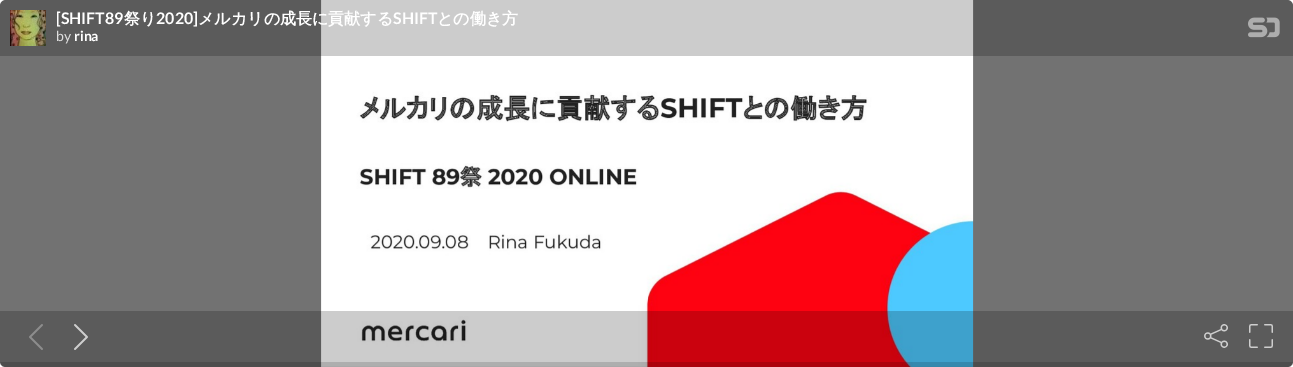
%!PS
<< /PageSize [1293 367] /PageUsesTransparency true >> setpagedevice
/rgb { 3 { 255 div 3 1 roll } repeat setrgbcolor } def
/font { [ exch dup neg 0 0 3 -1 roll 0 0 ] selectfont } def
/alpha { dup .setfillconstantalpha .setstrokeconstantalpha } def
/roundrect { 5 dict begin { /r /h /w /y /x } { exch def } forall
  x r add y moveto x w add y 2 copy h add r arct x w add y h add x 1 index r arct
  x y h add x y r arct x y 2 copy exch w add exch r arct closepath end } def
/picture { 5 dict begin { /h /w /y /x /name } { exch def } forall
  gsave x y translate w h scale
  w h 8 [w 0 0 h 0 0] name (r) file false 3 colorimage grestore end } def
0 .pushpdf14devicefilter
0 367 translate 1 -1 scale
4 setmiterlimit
255 255 255 rgb
0 0 1293 367 rectfill
114 114 114 rgb
0 0 1293 367 6 roundrect fill
(img/1.rgb) 321 0 653 367 picture
0.2 alpha
0 0 0 rgb
6 0 moveto 1287 0 lineto 1290.5 0 1293 2.5 1293 6 curveto 1293 56 lineto 0 56 lineto 0 6 lineto 0 2.5 2.5 0 6 0 curveto closepath fill
1 alpha
(img/2.rgb) 10 10 36 36 picture
(img/3.rgb) 1248 17 32 21 picture
0.2 alpha
0 311 moveto 1293 311 lineto 1293 361 lineto 1293 364.5 1290.5 367 1287 367 curveto 6 367 lineto 2.5 367 0 364.5 0 361 curveto closepath fill
1 alpha
(img/4.rgb) 29 324 14 26 picture
(img/5.rgb) 74 324 14 26 picture
(img/6.rgb) 1204 324 24 24 picture
(img/7.rgb) 1249 324 24 24 picture
gsave
0 0 1293 367 6 roundrect clip newpath
0.15 alpha
0 362 1293 5 rectfill
grestore
/Lato-Bold 16 font
255 255 255 rgb
56 24 moveto ([SHIFT89) show
/WenQuanYiZenHei-Bold 16 font
124 24 moveto (祭り) show
/Lato-Bold 16 font
156 24 moveto (2020]) show
/WenQuanYiZenHei-Bold 16 font
198 24 moveto (メルカリの成長に貢献する) show
/Lato-Bold 16 font
393 24 moveto (SHIFT) show
/WenQuanYiZenHei-Bold 16 font
437 24 moveto (との働き方) show
/Lato-Regular 14 font
222 222 222 rgb
56 41 moveto (by) show
/Lato-Bold 14 font
255 255 255 rgb
74 41 moveto (rina) show
.poppdf14devicefilter showpage
